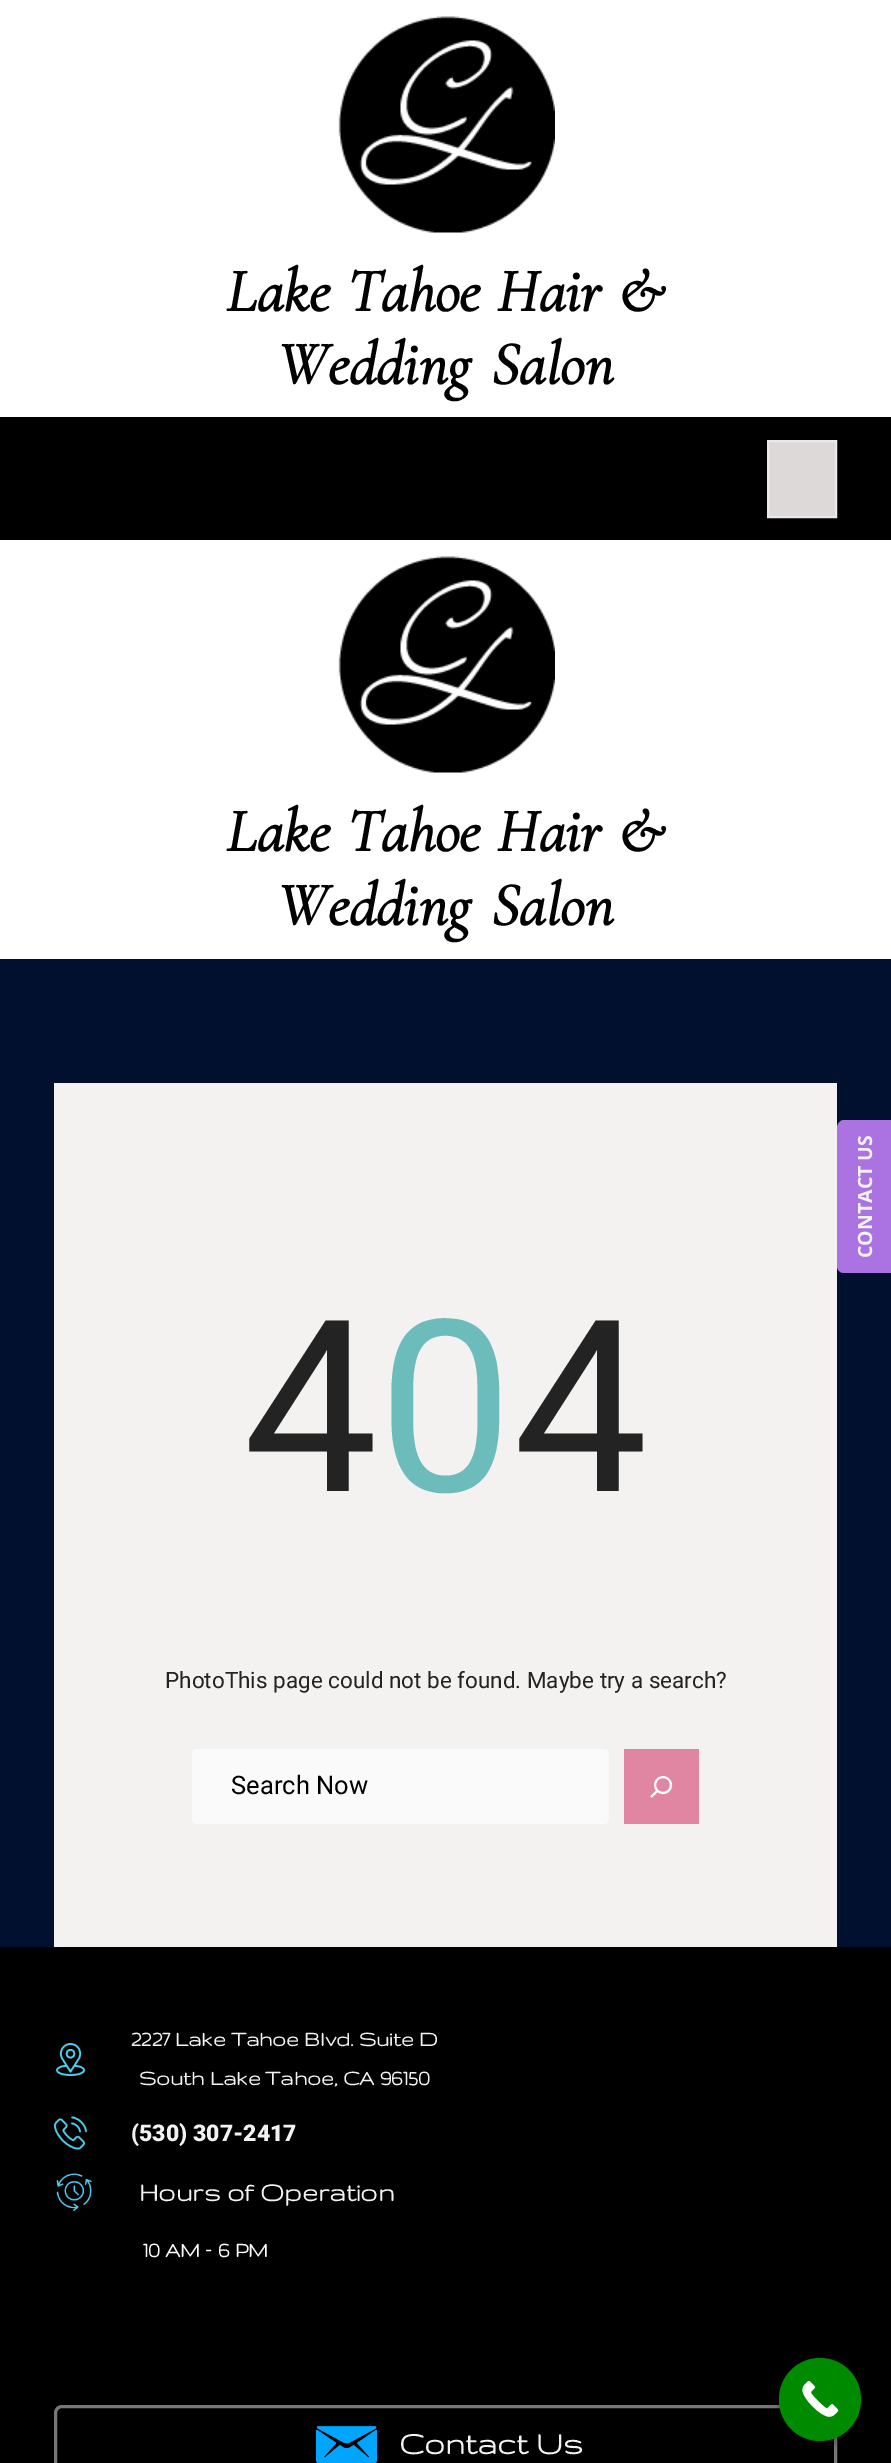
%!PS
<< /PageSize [891 2463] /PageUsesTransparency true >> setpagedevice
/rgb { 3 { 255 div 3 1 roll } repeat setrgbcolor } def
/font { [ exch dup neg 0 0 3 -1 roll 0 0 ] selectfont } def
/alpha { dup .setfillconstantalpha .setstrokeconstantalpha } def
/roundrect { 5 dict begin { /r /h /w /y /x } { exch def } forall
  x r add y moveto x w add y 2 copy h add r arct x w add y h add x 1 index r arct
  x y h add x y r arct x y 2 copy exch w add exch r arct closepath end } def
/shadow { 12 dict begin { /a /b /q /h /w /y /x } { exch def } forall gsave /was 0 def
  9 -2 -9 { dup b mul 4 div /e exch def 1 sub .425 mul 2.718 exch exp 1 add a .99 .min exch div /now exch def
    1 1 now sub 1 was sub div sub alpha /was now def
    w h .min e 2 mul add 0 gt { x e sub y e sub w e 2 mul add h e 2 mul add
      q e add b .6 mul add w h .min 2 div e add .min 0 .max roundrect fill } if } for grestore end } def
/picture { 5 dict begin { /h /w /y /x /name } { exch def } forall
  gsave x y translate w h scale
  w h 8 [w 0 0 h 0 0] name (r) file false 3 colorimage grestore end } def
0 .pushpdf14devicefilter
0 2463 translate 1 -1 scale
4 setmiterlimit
255 255 255 rgb
0 0 891 2463 rectfill
(img/1.rgb) 338 16 217 217 picture
0 0 0 rgb
0 417 891 123 rectfill
221 217 217 rgb
768 441 moveto 836 441 lineto 836 517 lineto 768 517 lineto closepath gsave fill grestore
234 234 235 rgb
2 setlinewidth
stroke
(img/1.rgb) 338 556 217 217 picture
0 16 46 rgb
0 959 891 988 rectfill
243 242 240 rgb
54 1083 783 864 rectfill
250 250 250 rgb
192 1749 417 75 5 roundrect fill
225 134 162 rgb
624 1749 75 75 rectfill
(img/2.rgb) 650 1776 23 22 picture
0 0 0 rgb
0 1947 891 516 rectfill
(img/3.rgb) 55 2043 31 33 picture
(img/4.rgb) 54 2116 33 34 picture
(img/5.rgb) 56 2173 36 39 picture
119 119 119 rgb
3 setlinewidth
55.5 2406.5 780 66 6.5 roundrect stroke
(img/6.rgb) 316 2426 61 37 picture
171 115 226 rgb
837 1266 moveto 837 1128 lineto 837 1124 840 1120 844 1120 curveto 891 1120 lineto 891 1273 lineto 844 1273 lineto 840 1273 837 1270 837 1266 curveto closepath fill
0 0 0 rgb
779 2363 82 82 41 4.5 0.3 shadow
0 138 0 rgb
779 2358 82 83 41 roundrect fill
(img/7.rgb) 802 2380 37 37 picture
/CormorantGaramond-BoldItalic 61.5 font
0 0 0 rgb
226 311 moveto 2.5 0 32 (Lake Tahoe Hair &) widthshow
277 384 moveto 6 0 32 (Wedding Salon) widthshow
226 851 moveto 2.5 0 32 (Lake Tahoe Hair &) widthshow
277 925 moveto 6 0 32 (Wedding Salon) widthshow
/Roboto-Regular 240 font
35 35 35 rgb
243 1491 moveto (4) show
107 188 186 rgb
378 1491 moveto (0) show
35 35 35 rgb
513 1491 moveto (4) show
/Roboto-Regular 22.5 font
165 1688 moveto (PhotoThis page could not be found. Maybe try a search?) show
/Roboto-Regular 25.5 font
0 0 0 rgb
231 1794 moveto (Search Now) show
/Gruppo-Bold 23 font
242 242 242 rgb
131 2046 moveto (2227 Lake Tahoe Blvd. Suite D) show
139 2085 moveto (South Lake Tahoe, CA 96150) show
/Roboto-Black 23 font
131 2141 moveto (\(530\) 307-2417) show
/Gruppo-Bold 28.75 font
139 2201 moveto (Hours of Operation) show
/Gruppo-Bold 23 font
255 255 255 rgb
143 2257 moveto (10 AM – 6 PM) show
/Gruppo-Bold 34.5 font
242 242 242 rgb
399 2454 moveto (Contact Us) show
/OpenSans-Bold 19.5 font
gsave 872 1258 translate -90 rotate 0 0 moveto (CONTACT US) show grestore
.poppdf14devicefilter showpage
